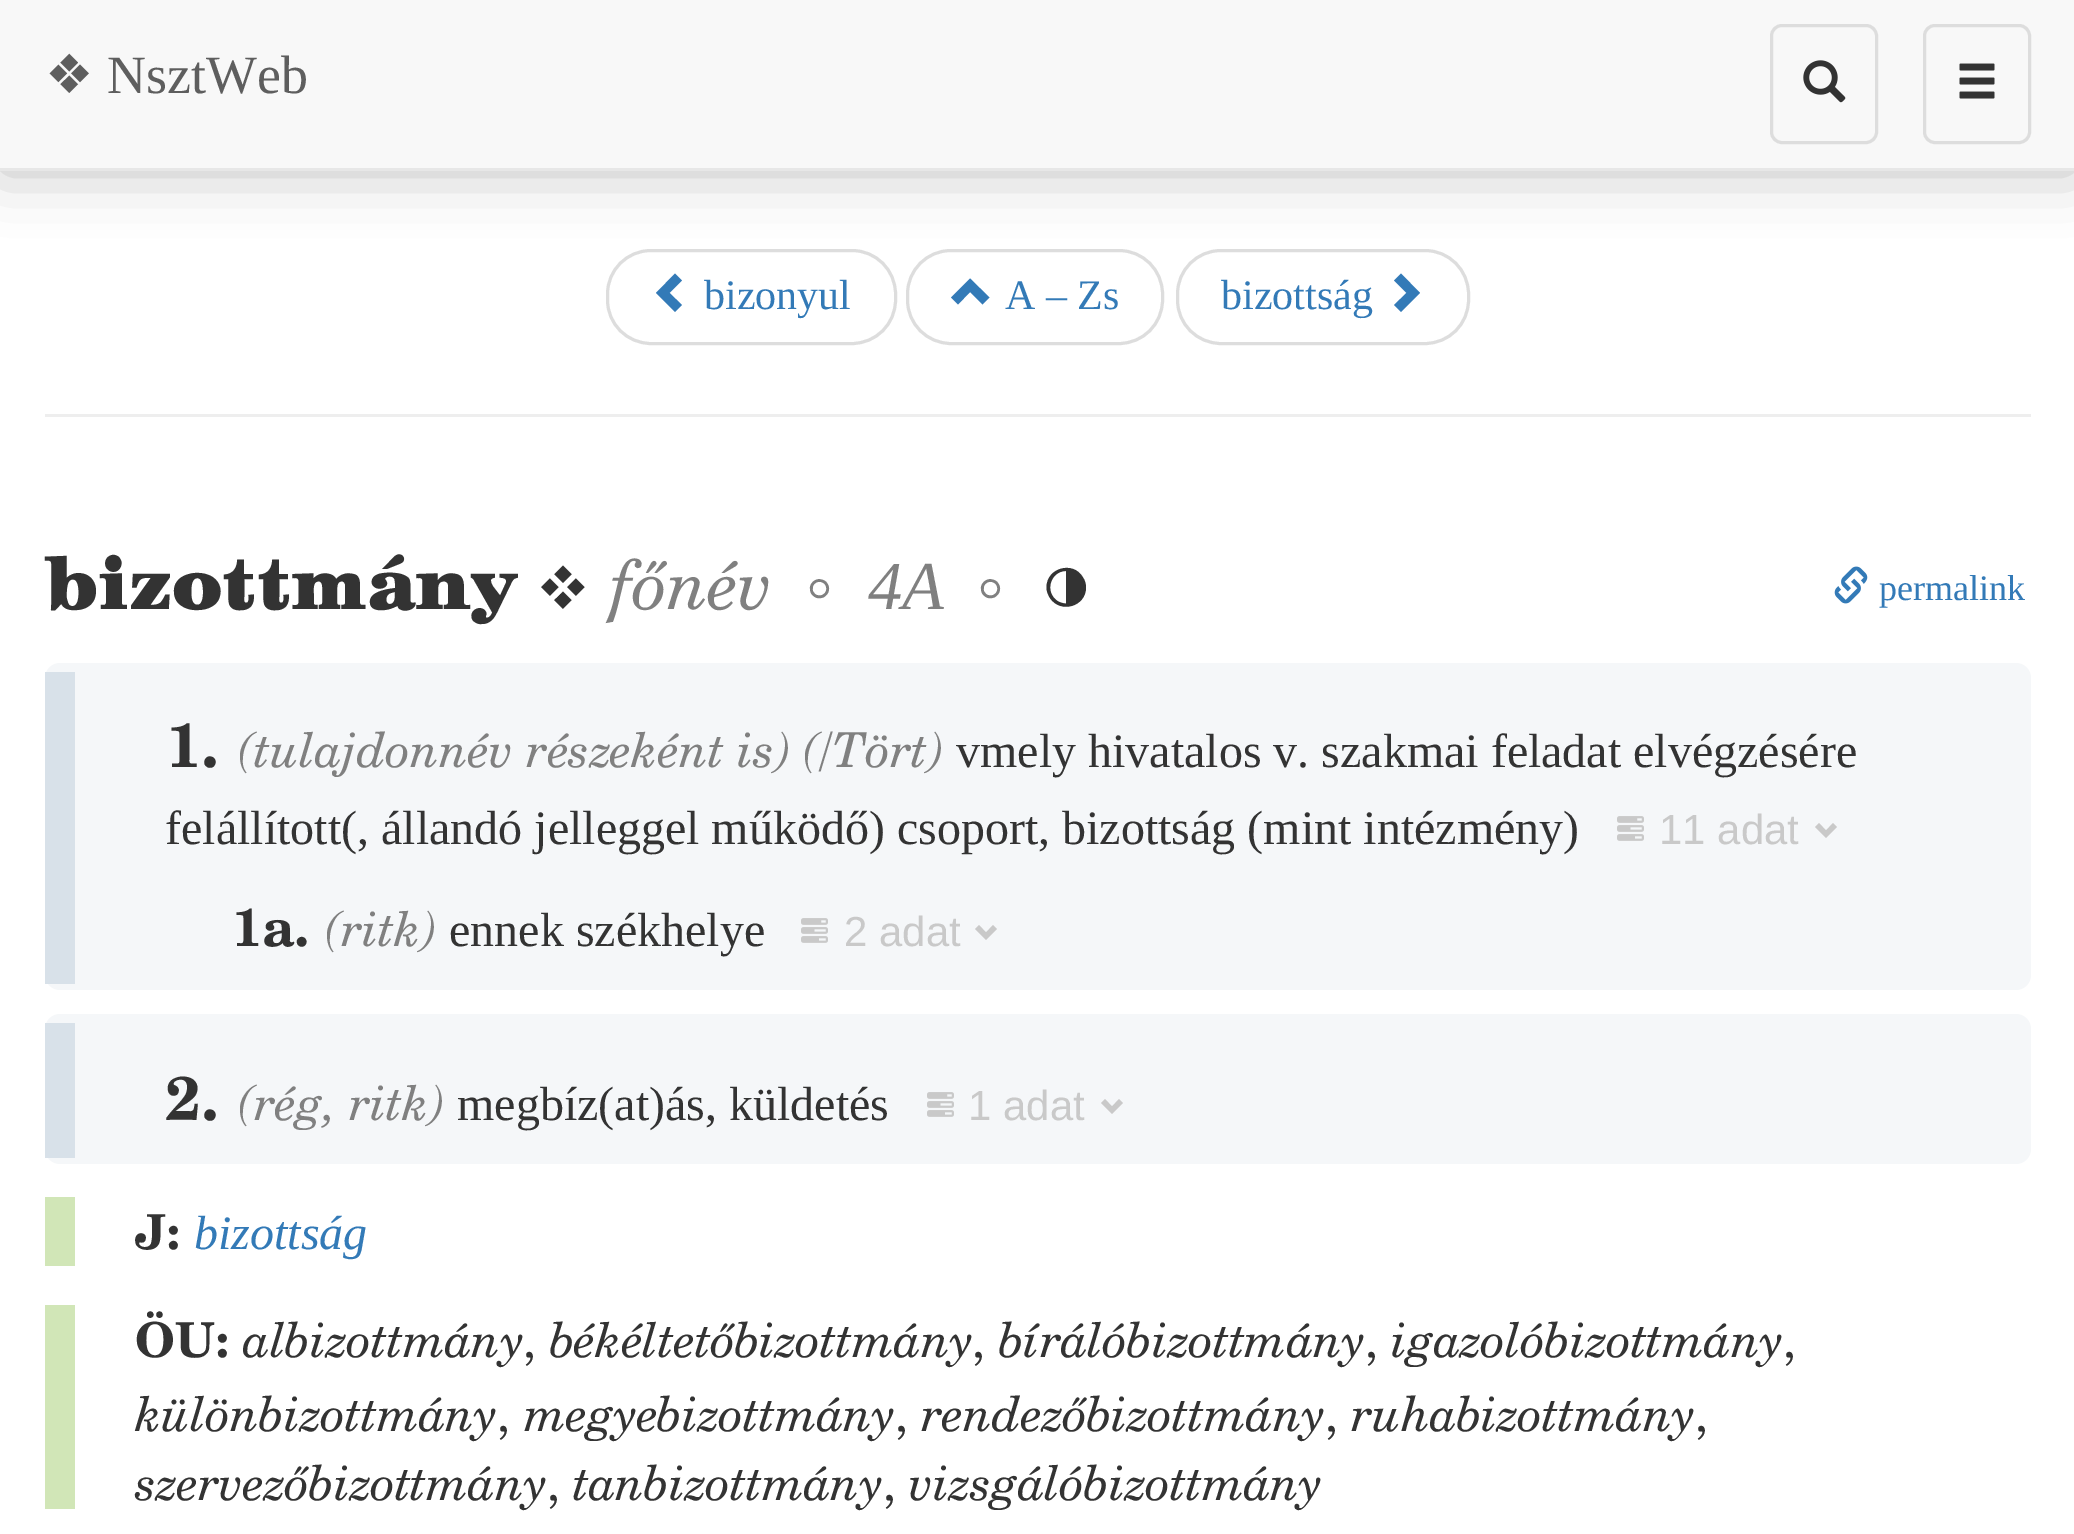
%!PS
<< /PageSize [2074 1534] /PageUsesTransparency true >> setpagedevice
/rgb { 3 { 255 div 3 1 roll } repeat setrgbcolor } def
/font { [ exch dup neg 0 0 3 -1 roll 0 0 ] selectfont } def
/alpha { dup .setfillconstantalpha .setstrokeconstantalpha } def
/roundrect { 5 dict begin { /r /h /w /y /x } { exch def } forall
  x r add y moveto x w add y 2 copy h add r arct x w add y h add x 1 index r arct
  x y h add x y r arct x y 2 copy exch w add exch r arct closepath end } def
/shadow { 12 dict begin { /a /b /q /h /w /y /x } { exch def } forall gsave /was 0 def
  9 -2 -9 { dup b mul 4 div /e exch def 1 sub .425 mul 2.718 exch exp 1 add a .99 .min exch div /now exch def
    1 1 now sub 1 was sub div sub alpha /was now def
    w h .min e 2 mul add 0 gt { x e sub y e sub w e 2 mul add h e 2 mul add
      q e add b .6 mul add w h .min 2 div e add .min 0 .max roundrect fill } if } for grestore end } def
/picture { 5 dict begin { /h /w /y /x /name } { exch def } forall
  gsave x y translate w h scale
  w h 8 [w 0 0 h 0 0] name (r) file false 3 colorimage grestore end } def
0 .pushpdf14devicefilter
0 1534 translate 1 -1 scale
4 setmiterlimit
255 255 255 rgb
0 0 2074 1534 rectfill
221 221 221 rgb
3 setlinewidth
607.5 250.5 288 93 43.5 roundrect stroke
907.5 250.5 255 93 43.5 roundrect stroke
1177.5 250.5 291 93 43.5 roundrect stroke
0 0 0 rgb
0 0 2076 171 0 30 0.25 shadow
248 248 248 rgb
0 0 2074 168 rectfill
231 231 231 rgb
0 168 2074 3 rectfill
221 221 221 rgb
1771.5 25.5 105 117 10.5 roundrect stroke
(img/1.rgb) 1803 60 43 43 picture
1924.5 25.5 105 117 10.5 roundrect stroke
(img/2.rgb) 1959 63 36 36 picture
51 122 183 rgb
682 280.5 moveto 669.5 293 lineto 682 305 lineto 675 312 lineto 656 293 lineto 675 273.5 lineto closepath fill
989.5 297.5 moveto 982.5 304.5 lineto 970 292 lineto 958 304.5 lineto 951 297.5 lineto 970 278.5 lineto closepath fill
1420 293 moveto 1401 312 lineto 1394 305 lineto 1406.5 293 lineto 1394 280.5 lineto 1401 273.5 lineto closepath fill
238 238 238 rgb
45 414 1986 3 rectfill
51 51 51 rgb
1086 587.5 moveto 1086 606.5 1060.5 614 1050 598 curveto 1048 595 1046.5 591 1046.5 587.5 curveto 1046.5 567.5 1073.5 560.5 1083 577.5 curveto 1085 580.5 1086 584 1086 587.5 curveto closepath 1066 571 moveto 1050.5 571 1044 592 1057.5 601 curveto 1060 602.5 1063 603.5 1066 603.5 curveto closepath fill
(img/3.rgb) 1834 566 34 38 picture
245 247 249 rgb
45 663 1986 327 15 roundrect fill
216 225 233 rgb
45 672 30 312 rectfill
(img/4.rgb) 1617 816 27 25 picture
201 201 201 rgb
1837 827 moveto 1826 838 lineto 1815 827 lineto 1819 823 lineto 1826 830.5 lineto 1833 823 lineto closepath fill
(img/4.rgb) 801 918 27 25 picture
997 929 moveto 986 940 lineto 975 929 lineto 979 925 lineto 986 932.5 lineto 993 925 lineto closepath fill
245 247 249 rgb
45 1014 1986 150 15 roundrect fill
216 225 233 rgb
45 1023 30 135 rectfill
(img/4.rgb) 927 1092 27 25 picture
201 201 201 rgb
1123 1103 moveto 1112 1114 lineto 1101 1103 lineto 1105 1099 lineto 1112 1106.5 lineto 1119 1099 lineto closepath fill
209 230 183 rgb
45 1197 30 69 rectfill
45 1305 30 204 rectfill
/DejaVuSans-Regular 54 font
94 94 94 rgb
45 93 moveto (❖) show
/LiberationSerif-Regular 54 font
107 93 moveto (NsztWeb) show
/LiberationSerif-Regular 42 font
51 122 183 rgb
[
  [(bizonyul) 704 309]
  [(A – Zs) 1005 309]
  [(bizottság) 1221 309]
] { aload pop moveto show } forall
/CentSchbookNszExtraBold-ExtraBold 72 font
51 51 51 rgb
45 609 moveto (bizottmány) show
/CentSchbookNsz-Regular 72 font
536 609 moveto (❖) show
/CentSchbookNsz-Italic 68.5 font
128 128 128 rgb
610 609 moveto (főnév ◦) show
/LiberationSerif-Italic 68.5 font
868 609 moveto (4A) show
/CentSchbookNsz-Italic 68.5 font
962 609 moveto (◦) show
/LiberationSerif-Regular 36 font
51 122 183 rgb
1879 600 moveto (permalink) show
/CentSchbookNsz-Bold 62 font
51 51 51 rgb
165 767 moveto (1.) show
/CentSchbookNsz-Italic 48 font
128 128 128 rgb
238 767 moveto (\(tulajdonnév részeként is\) \(/Tört\)) show
/LiberationSerif-Regular 48 font
51 51 51 rgb
956 767 moveto (vmely hivatalos v. szakmai feladat elvégzésére) show
165 844 moveto (felállított\(, állandó jelleggel működő\) csoport, bizottság \(mint intézmény\)) show
/LiberationSans-Regular 42 font
201 201 201 rgb
1659 844 moveto (11 adat) show
/CentSchbookNsz-Bold 53 font
51 51 51 rgb
231 946 moveto (1a.) show
/CentSchbookNsz-Italic 48 font
128 128 128 rgb
325 946 moveto (\(ritk\)) show
/LiberationSerif-Regular 48 font
51 51 51 rgb
449 946 moveto (ennek székhelye) show
/LiberationSans-Regular 42 font
201 201 201 rgb
844 946 moveto (2 adat) show
/CentSchbookNsz-Bold 62 font
51 51 51 rgb
165 1120 moveto (2.) show
/CentSchbookNsz-Italic 48 font
128 128 128 rgb
238 1120 moveto (\(rég, ritk\)) show
/LiberationSerif-Regular 48 font
51 51 51 rgb
457 1120 moveto (megbíz\(at\)ás, küldetés) show
/LiberationSans-Regular 42 font
201 201 201 rgb
968 1120 moveto (1 adat) show
/CentSchbookNsz-Bold 48 font
51 51 51 rgb
135 1249 moveto (J:) show
/LiberationSerif-Italic 48 font
51 122 183 rgb
194 1249 moveto (bizottság) show
/CentSchbookNsz-Bold 48 font
51 51 51 rgb
135 1357 moveto (ÖU:) show
/CentSchbookNsz-Italic 48 font
243 1357 moveto (albizottmány) show
/CentSchbookNsz-Regular 48 font
523 1357 moveto (,) show
/CentSchbookNsz-Italic 48 font
550 1357 moveto (békéltetőbizottmány) show
/CentSchbookNsz-Regular 48 font
972 1357 moveto (,) show
/CentSchbookNsz-Italic 48 font
999 1357 moveto (bírálóbizottmány) show
/CentSchbookNsz-Regular 48 font
1365 1357 moveto (,) show
/CentSchbookNsz-Italic 48 font
1391 1357 moveto (igazolóbizottmány) show
/CentSchbookNsz-Regular 48 font
1783 1357 moveto (,) show
/CentSchbookNsz-Italic 48 font
135 1431 moveto (különbizottmány) show
/CentSchbookNsz-Regular 48 font
497 1431 moveto (,) show
/CentSchbookNsz-Italic 48 font
524 1431 moveto (megyebizottmány) show
/CentSchbookNsz-Regular 48 font
895 1431 moveto (,) show
/CentSchbookNsz-Italic 48 font
921 1431 moveto (rendezőbizottmány) show
/CentSchbookNsz-Regular 48 font
1325 1431 moveto (,) show
/CentSchbookNsz-Italic 48 font
1351 1431 moveto (ruhabizottmány) show
/CentSchbookNsz-Regular 48 font
1695 1431 moveto (,) show
/CentSchbookNsz-Italic 48 font
135 1500 moveto (szervezőbizottmány) show
/CentSchbookNsz-Regular 48 font
547 1500 moveto (,) show
/CentSchbookNsz-Italic 48 font
573 1500 moveto (tanbizottmány) show
/CentSchbookNsz-Regular 48 font
883 1500 moveto (,) show
/CentSchbookNsz-Italic 48 font
909 1500 moveto (vizsgálóbizottmány) show
.poppdf14devicefilter showpage
